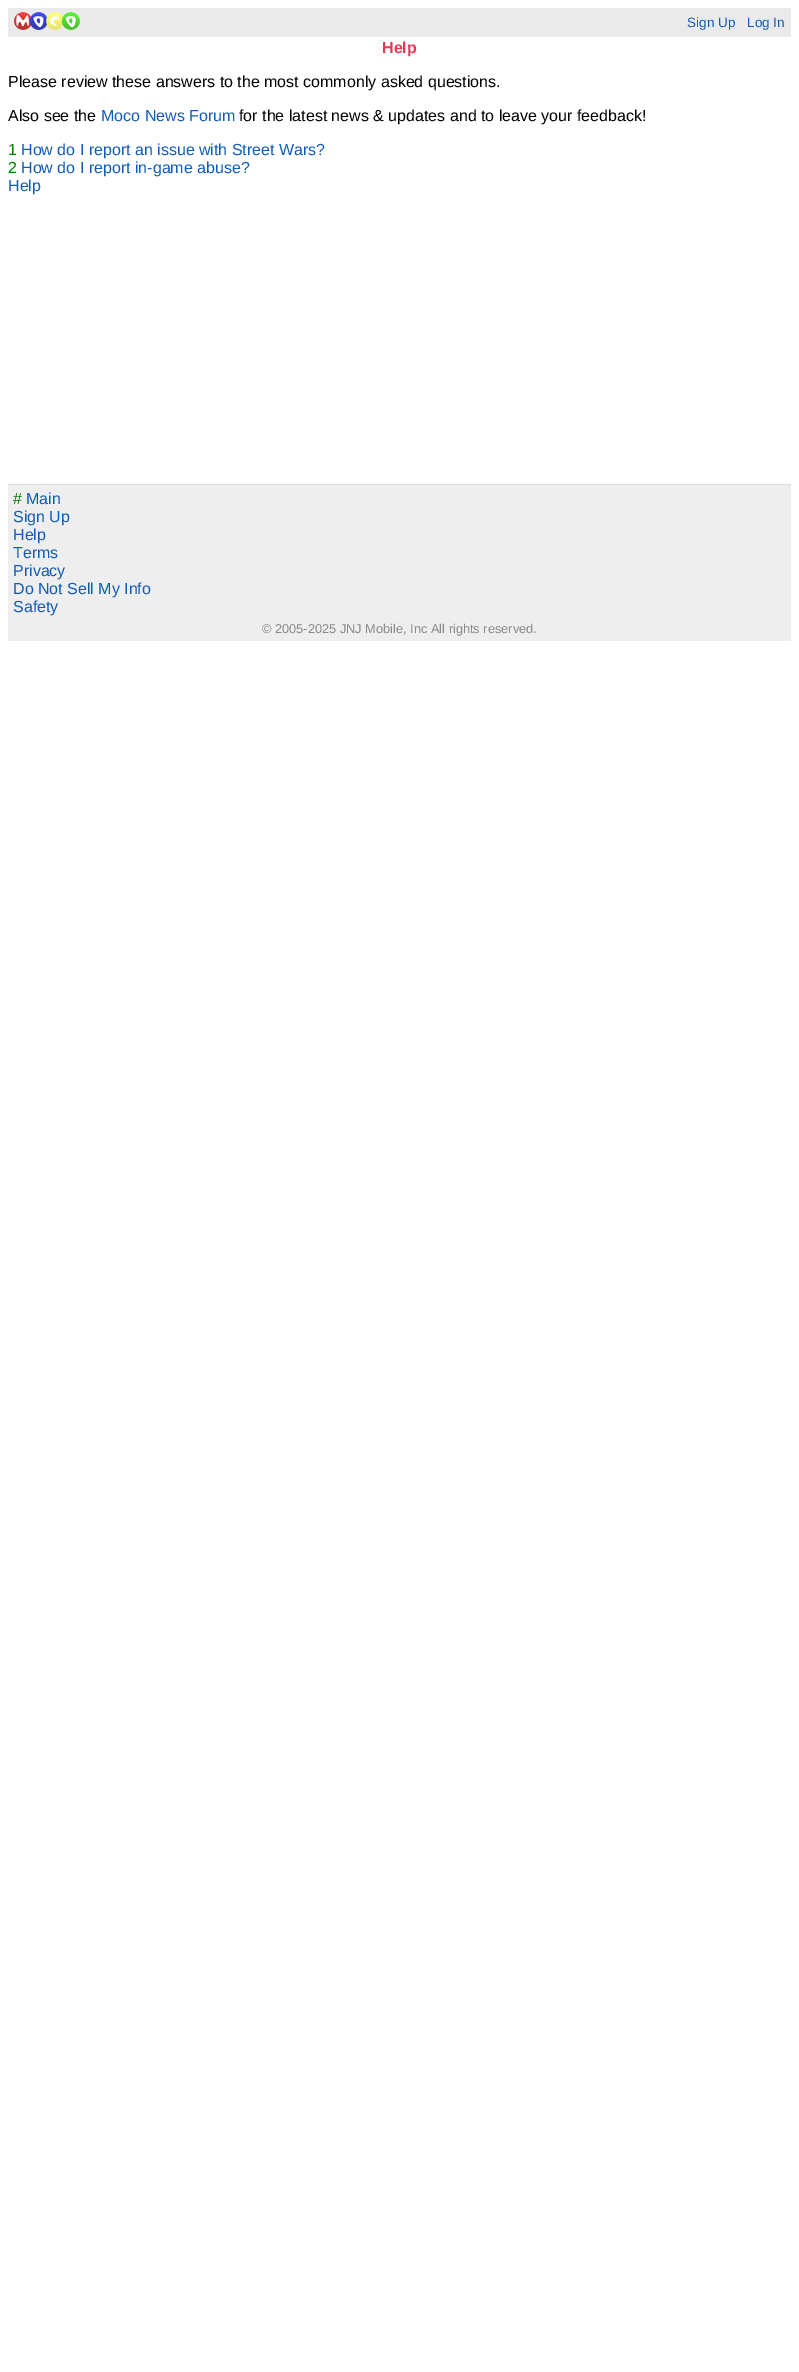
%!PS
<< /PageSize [799 2372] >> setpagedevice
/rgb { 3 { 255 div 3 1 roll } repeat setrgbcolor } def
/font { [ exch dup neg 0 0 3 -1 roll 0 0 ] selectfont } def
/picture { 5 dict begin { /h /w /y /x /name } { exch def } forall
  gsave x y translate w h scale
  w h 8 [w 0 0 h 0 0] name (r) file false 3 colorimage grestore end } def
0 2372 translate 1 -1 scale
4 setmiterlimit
255 255 255 rgb
0 0 799 2372 rectfill
234 234 234 rgb
8 8 783 29 rectfill
(img/1.rgb) 14 12 66 18 picture
238 238 238 rgb
8 485 783 156 rectfill
221 221 221 rgb
8 484 783 1 rectfill
/LiberationSans-Regular 13.5 font
16 92 182 rgb
687 27 moveto (Sign Up) show
747 27 moveto (Log In) show
/LiberationSans-Bold 16 font
230 57 85 rgb
382 53 moveto (Help) show
/LiberationSans-Regular 16 font
0 0 0 rgb
8 87 moveto (Please review these answers to the most commonly asked questions.) show
8 121 moveto (Also see the) show
16 92 182 rgb
101 121 moveto (Moco News Forum) show
0 0 0 rgb
239 121 moveto (for the latest news & updates and to leave your feedback!) show
0 128 0 rgb
8 155 moveto (1) show
16 92 182 rgb
21 155 moveto (How do I report an issue with Street Wars?) show
0 128 0 rgb
8 173 moveto (2) show
16 92 182 rgb
21 173 moveto (How do I report in-game abuse?) show
8 191 moveto (Help) show
0 128 0 rgb
13 504 moveto (#) show
16 92 182 rgb
[
  [(Main) 26 504]
  [(Sign Up) 13 522]
  [(Help) 13 540]
  [(Terms) 13 558]
  [(Privacy) 13 576]
  [(Do Not Sell My Info) 13 594]
  [(Safety) 13 612]
] { aload pop moveto show } forall
/LiberationSans-Regular 12.8 font
136 136 136 rgb
262 633 moveto (© 2005-2025 JNJ Mobile, Inc All rights reserved.) show
showpage
